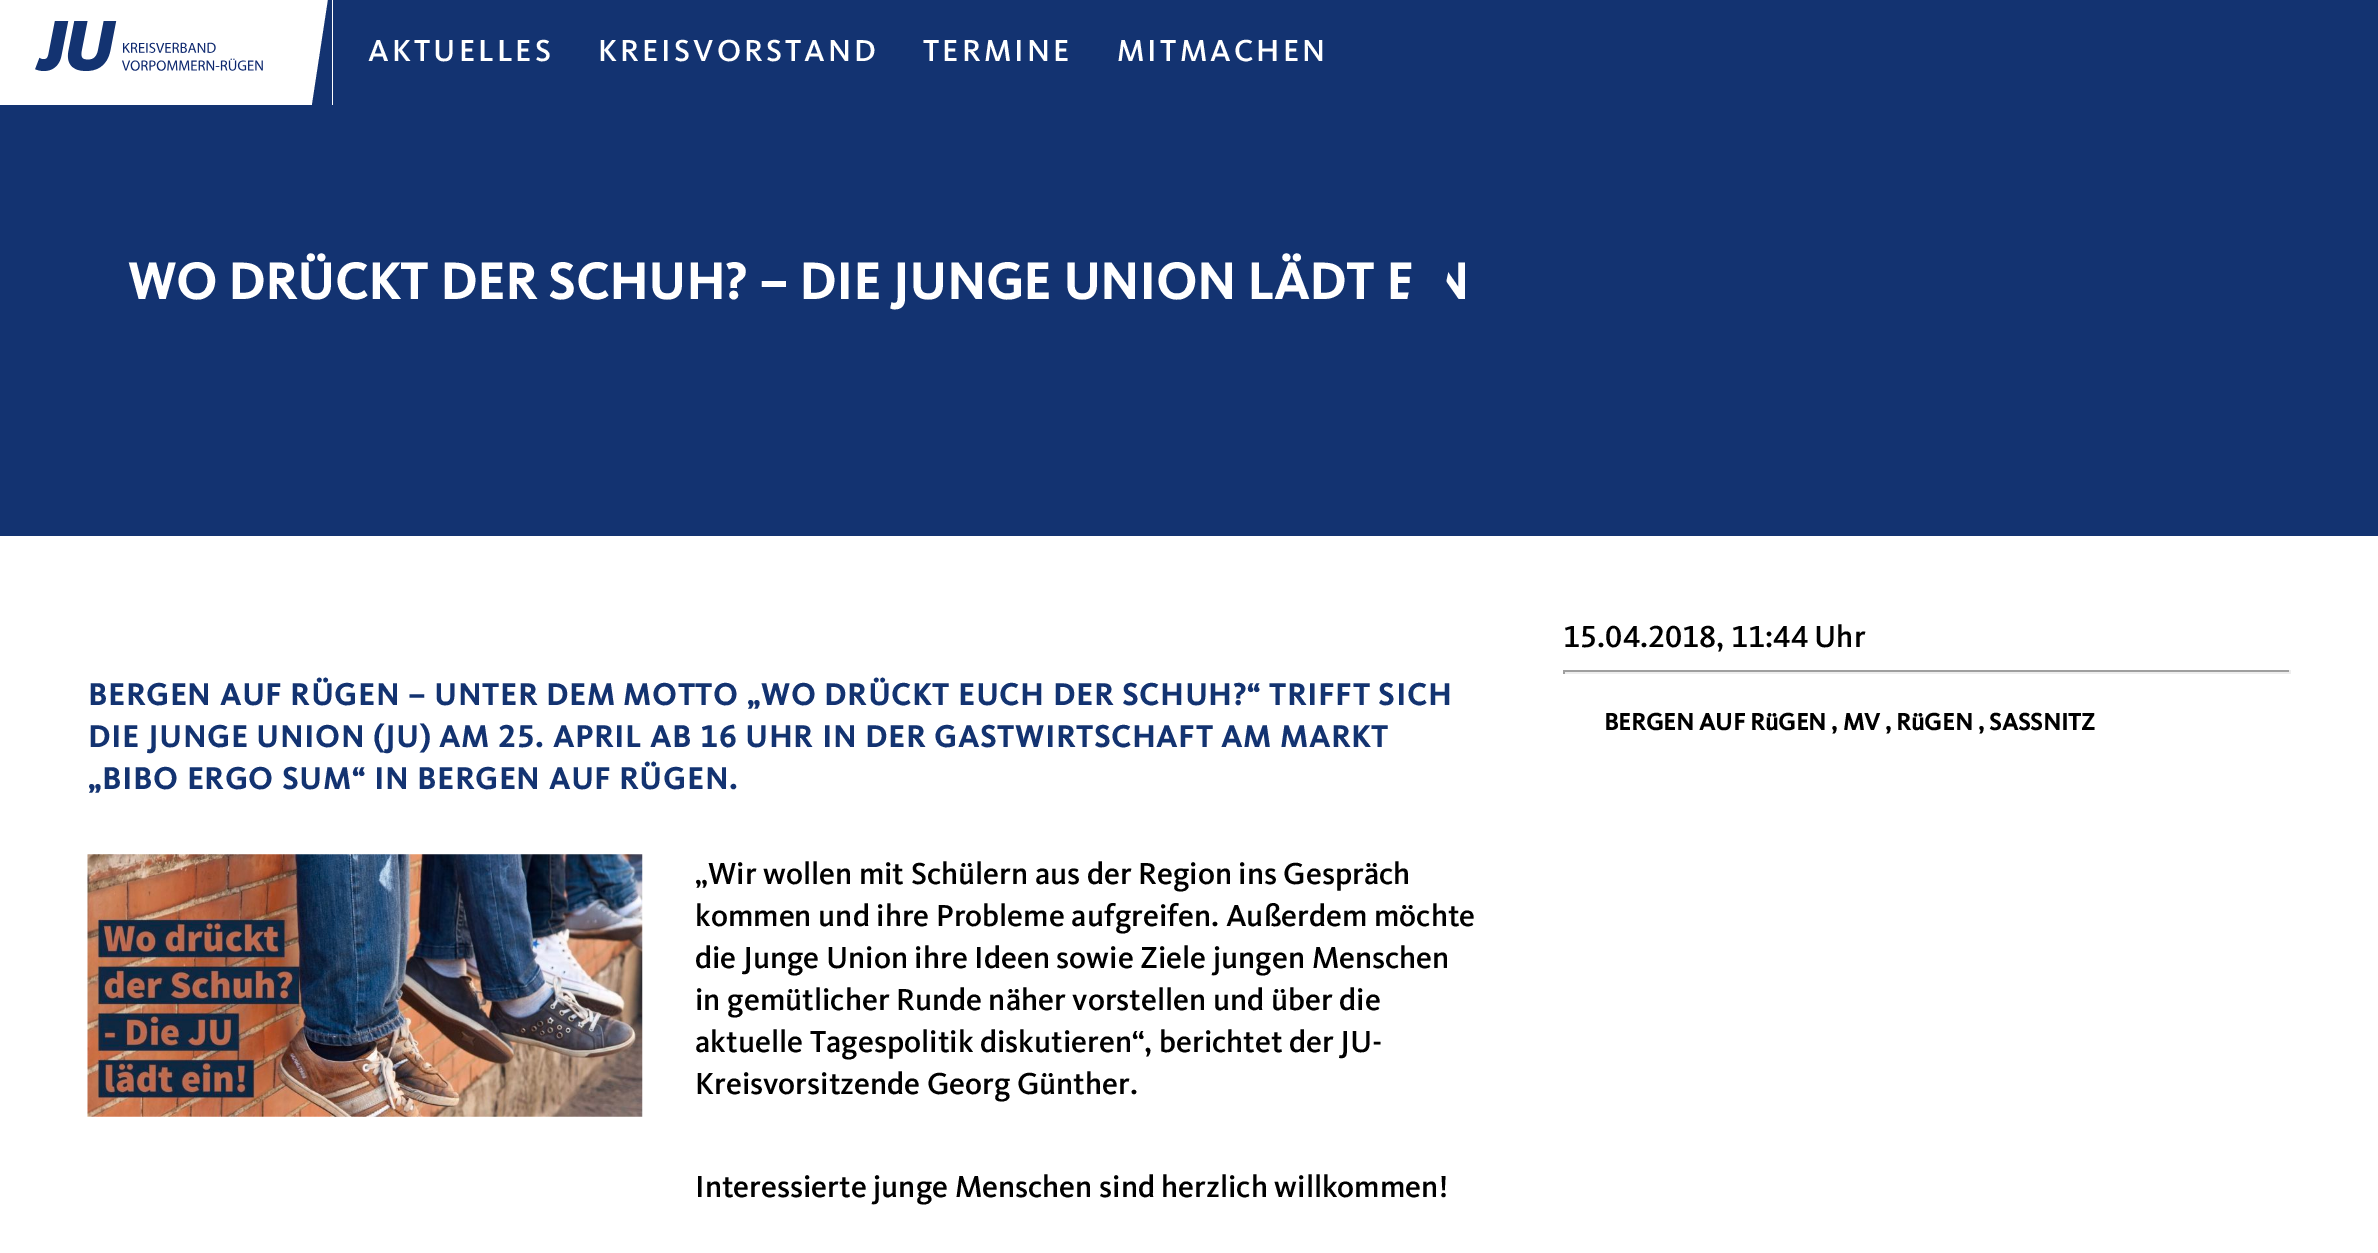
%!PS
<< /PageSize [2378 1253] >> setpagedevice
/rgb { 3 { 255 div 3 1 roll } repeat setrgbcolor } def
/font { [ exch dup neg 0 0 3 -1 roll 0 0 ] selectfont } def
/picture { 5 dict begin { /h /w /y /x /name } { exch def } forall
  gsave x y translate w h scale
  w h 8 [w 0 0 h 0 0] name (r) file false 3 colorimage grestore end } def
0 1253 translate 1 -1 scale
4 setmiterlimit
255 255 255 rgb
0 0 2378 1253 rectfill
(img/1.rgb) 35 21 228 50 picture
19 51 113 rgb
332 0 moveto 328 0 lineto 312 105 lineto 332 105 lineto closepath fill
333 0 2045 105 rectfill
0 105 2378 431 rectfill
(img/2.rgb) 87 854 556 263 picture
[
  [1563 670 728 2 159 159 159]
  [2289 670 2 4 238 238 238]
  [1563 672 728 2 238 238 238]
  [1563 670 2 4 159 159 159]
] { aload pop rgb rectfill } forall
/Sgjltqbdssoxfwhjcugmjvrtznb-Medium 31.5 font
255 255 255 rgb
368 61 moveto 3.1 0 (AKTUELLES) ashow
598 61 moveto 3.1 0 (KREISVORSTAND) ashow
923 61 moveto 3.1 0 (TERMINE) ashow
1117 61 moveto 3.1 0 (MITMACHEN) ashow
/Sgjltqbdssoxfwhjcugmjvrtznb-Bold 52.5 font
128 299 moveto 0.65 0 (WO DRÜCKT DER SCHUH? – DIE JUNGE UNION LÄDT EIN) ashow
19 51 113 rgb
1428 201 moveto 1463 201 lineto 1428 368 lineto 1393 368 lineto closepath fill
/Sgjltqbdssoxfwhjcugmjvrtznb-Bold 31.5 font
88 705 moveto 1.4 0 (BERGEN AUF RÜGEN – UNTER DEM MOTTO „WO DRÜCKT EUCH DER SCHUH?“ TRIFFT SICH) ashow
88 747 moveto 1.4 0 (DIE JUNGE UNION \(JU\) AM 25. APRIL AB 16 UHR IN DER GASTWIRTSCHAFT AM MARKT) ashow
88 789 moveto 1.4 0 („BIBO ERGO SUM“ IN BERGEN AUF RÜGEN.) ashow
/Sgjltqbdssoxfwhjcugmjvrtznb-Medium 31.5 font
0 0 0 rgb
[
  [(„Wir wollen mit Schülern aus der Region ins Gespräch) 695 884]
  [(kommen und ihre Probleme aufgreifen. Außerdem möchte) 695 926]
  [(die Junge Union ihre Ideen sowie Ziele jungen Menschen) 695 968]
  [(in gemütlicher Runde näher vorstellen und über die) 695 1010]
  [(aktuelle Tagespolitik diskutieren“, berichtet der JU-) 695 1052]
  [(Kreisvorsitzende Georg Günther.) 695 1094]
  [(Interessierte junge Menschen sind herzlich willkommen!) 695 1197]
  [(15.04.2018, 11:44 Uhr) 1563 647]
] { aload pop moveto show } forall
/Sgjltqbdssoxfwhjcugmjvrtznb-Bold 24.6 font
1604 730 moveto (BERGEN AUF RüGEN , MV , RüGEN , SASSNITZ) show
showpage
